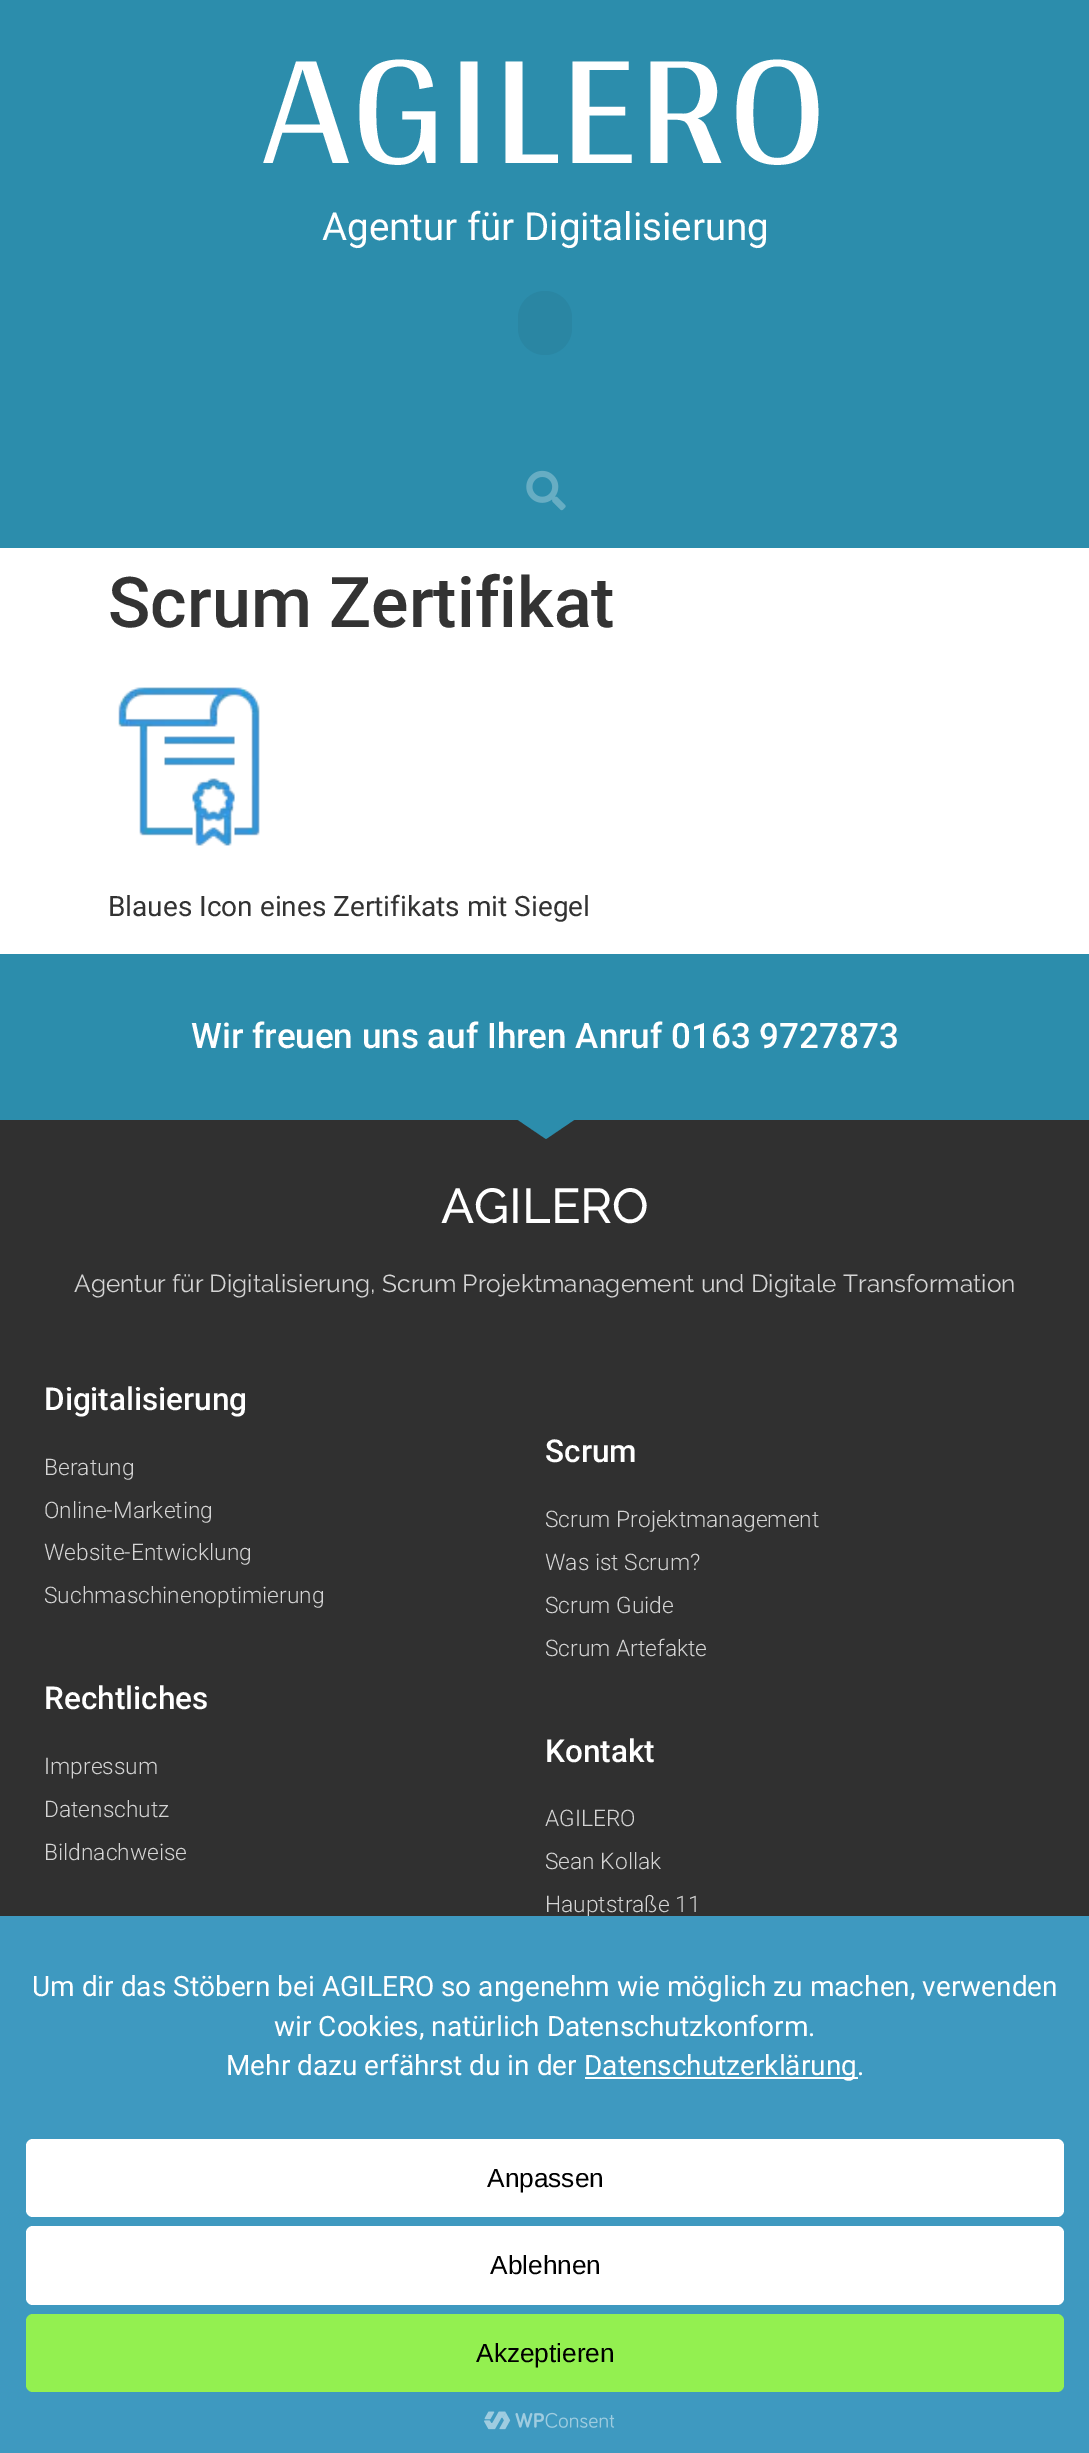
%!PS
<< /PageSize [1089 2453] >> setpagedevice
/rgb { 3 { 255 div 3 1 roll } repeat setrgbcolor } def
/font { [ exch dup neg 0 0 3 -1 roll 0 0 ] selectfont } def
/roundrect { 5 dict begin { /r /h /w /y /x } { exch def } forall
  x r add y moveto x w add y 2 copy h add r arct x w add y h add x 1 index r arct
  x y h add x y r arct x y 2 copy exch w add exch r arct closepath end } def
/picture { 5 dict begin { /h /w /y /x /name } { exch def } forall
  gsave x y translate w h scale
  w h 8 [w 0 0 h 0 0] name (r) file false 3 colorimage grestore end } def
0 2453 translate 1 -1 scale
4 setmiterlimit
255 255 255 rgb
0 0 1089 2453 rectfill
44 141 172 rgb
0 0 1089 548 rectfill
42 134 163 rgb
518 291 54 64 27 roundrect fill
(img/1.rgb) 526 470 40 41 picture
(img/2.rgb) 118 687 142 159 picture
44 141 172 rgb
0 954 1089 166 rectfill
48 48 48 rgb
0 1120 1089 796 rectfill
44 141 172 rgb
546 1139 moveto 515 1118 lineto 577 1118 lineto closepath fill
/Arya-Regular 166 font
255 255 255 rgb
261 163 moveto (AGILERO) show
/Roboto-Regular 38.5 font
322 240 moveto (Agentur für Digitalisierung) show
/Roboto-Medium 70 font
51 51 51 rgb
108 627 moveto (Scrum Zertifikat) show
/Roboto-Regular 28 font
108 916 moveto (Blaues Icon eines Zertifikats mit Siegel) show
/Roboto-Medium 35 font
255 255 255 rgb
191 1048 moveto (Wir freuen uns auf Ihren Anruf 0163 9727873) show
/Raleway-Medium 49 font
441 1223 moveto (AGILERO) show
/Raleway-Regular 24.5 font
212 212 212 rgb
74 1292 moveto (Agentur für Digitalisierung, Scrum Projektmanagement und Digitale Transformation) show
/Roboto-Medium 31.5 font
255 255 255 rgb
44 1410 moveto (Digitalisierung) show
/Roboto-Light 22.75 font
212 212 212 rgb
[
  [(Beratung) 44 1475]
  [(Online-Marketing) 44 1518]
  [(Website-Entwicklung) 44 1560]
  [(Suchmaschinenoptimierung) 44 1603]
] { aload pop moveto show } forall
/Roboto-Medium 31.5 font
255 255 255 rgb
545 1462 moveto (Scrum) show
/Roboto-Light 22.75 font
212 212 212 rgb
[
  [(Scrum Projektmanagement) 545 1527]
  [(Was ist Scrum?) 545 1570]
  [(Scrum Guide) 545 1613]
  [(Scrum Artefakte) 545 1656]
] { aload pop moveto show } forall
/Roboto-Medium 31.5 font
255 255 255 rgb
44 1709 moveto (Rechtliches) show
/Roboto-Light 22.75 font
212 212 212 rgb
[
  [(Impressum) 44 1774]
  [(Datenschutz) 44 1817]
  [(Bildnachweise) 44 1860]
] { aload pop moveto show } forall
/Roboto-Medium 31.5 font
255 255 255 rgb
545 1762 moveto (Kontakt) show
/Roboto-Light 22.75 font
212 212 212 rgb
[
  [(AGILERO) 545 1826]
  [(Sean Kollak) 545 1869]
  [(Hauptstraße 11) 545 1912]
] { aload pop moveto show } forall
62 153 192 rgb
0 1916 1089 537 rectfill
/Roboto-Regular 28 font
255 255 255 rgb
[
  [(Um dir das Stöbern bei AGILERO so angenehm wie möglich zu machen, verwenden) 32 1996]
  [(wir Cookies, natürlich Datenschutzkonform.) 274 2036]
  [(Mehr dazu erfährst du in der) 226 2075]
] { aload pop moveto show } forall
585 2077 273 2 rectfill
584 2075 moveto (Datenschutzerklärung.) show
26 2139 1038 78 7 roundrect fill
/LiberationSans-Regular 26.25 font
0 0 0 rgb
487 2187 moveto (Anpassen) show
255 255 255 rgb
26 2226 1038 79 7 roundrect fill
0 0 0 rgb
490 2274 moveto (Ablehnen) show
147 240 80 rgb
26 2314 1038 78 7 roundrect fill
0 0 0 rgb
476 2362 moveto (Akzeptieren) show
(img/3.rgb) 484 2411 131 19 picture
showpage
